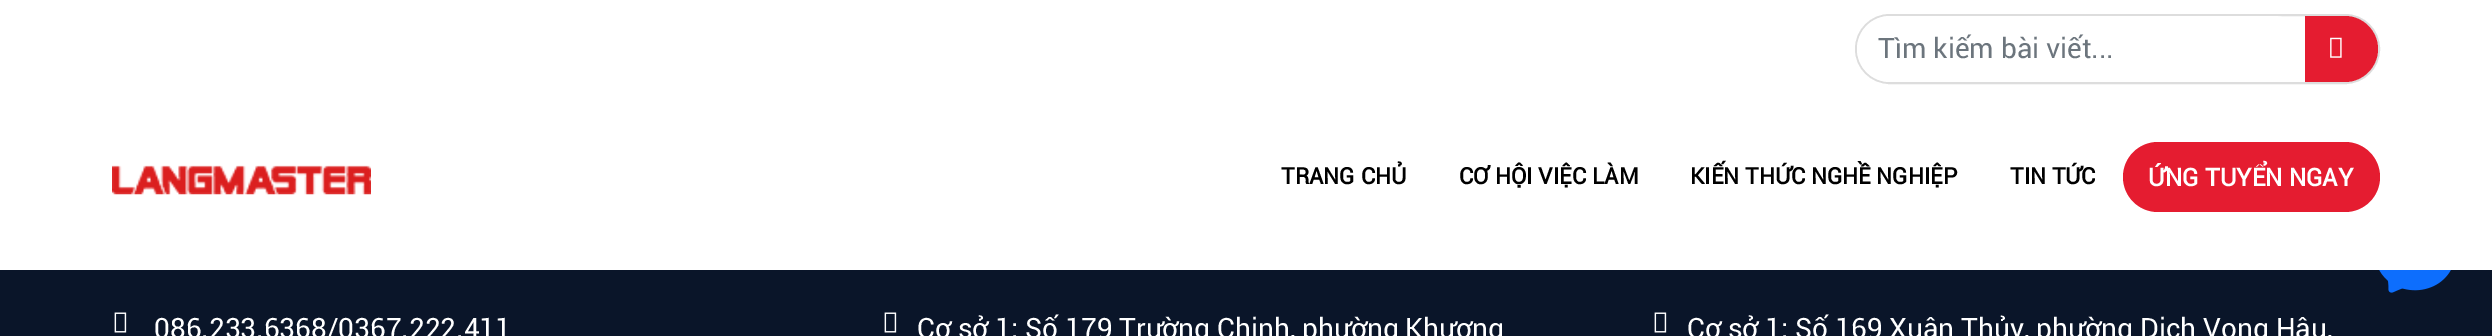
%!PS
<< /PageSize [2492 336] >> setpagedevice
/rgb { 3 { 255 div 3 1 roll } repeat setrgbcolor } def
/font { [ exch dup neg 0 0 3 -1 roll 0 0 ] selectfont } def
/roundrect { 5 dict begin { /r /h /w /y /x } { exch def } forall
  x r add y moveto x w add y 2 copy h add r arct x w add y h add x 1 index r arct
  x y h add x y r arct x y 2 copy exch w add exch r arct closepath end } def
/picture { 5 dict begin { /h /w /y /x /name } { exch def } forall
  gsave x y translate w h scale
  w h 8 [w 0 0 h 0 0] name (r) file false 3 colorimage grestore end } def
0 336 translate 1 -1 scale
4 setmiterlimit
10 21 41 rgb
0 0 2492 336 rectfill
255 255 255 rgb
0 0 2492 270 rectfill
221 221 221 rgb
2 setlinewidth
1856 15 523 68 34 roundrect stroke
255 255 255 rgb
1857 16 450 66 33 roundrect fill
229 28 48 rgb
2305 16 moveto 2345 16 lineto 2363 16 2378 31 2378 49 curveto 2378 67 2363 82 2345 82 curveto 2305 82 lineto closepath fill
(img/1.rgb) 2330 37 12 21 picture
(img/2.rgb) 112 165 259 30 picture
2123 142 257 70 35 roundrect fill
(img/3.rgb) 2379 270 72 23 picture
(img/4.rgb) 114 312 13 21 picture
(img/4.rgb) 884 312 13 21 picture
(img/4.rgb) 1654 312 13 21 picture
/Roboto-Regular 28 font
108 117 125 rgb
1878 58 moveto (Tìm kiếm bài viết...) show
/Roboto-Bold 22.75 font
0 0 0 rgb
[
  [(TRANG CHỦ) 1281 184]
  [(CƠ HỘI VIỆC LÀM) 1459 184]
  [(KIẾN THỨC NGHỀ NGHIỆP) 1690 184]
  [(TIN TỨC) 2010 184]
] { aload pop moveto show } forall
/Roboto-Bold 24.5 font
255 255 255 rgb
2148 186 moveto (ỨNG TUYỂN NGAY) show
/Roboto-Regular 28 font
[
  [(086.233.6368/0367.222.411) 154 338]
  [(Cơ sở 1: Số 179 Trường Chinh, phường Khương) 917 338]
  [(Cơ sở 1: Số 169 Xuân Thủy, phường Dịch Vọng Hậu,) 1687 338]
] { aload pop moveto show } forall
showpage
